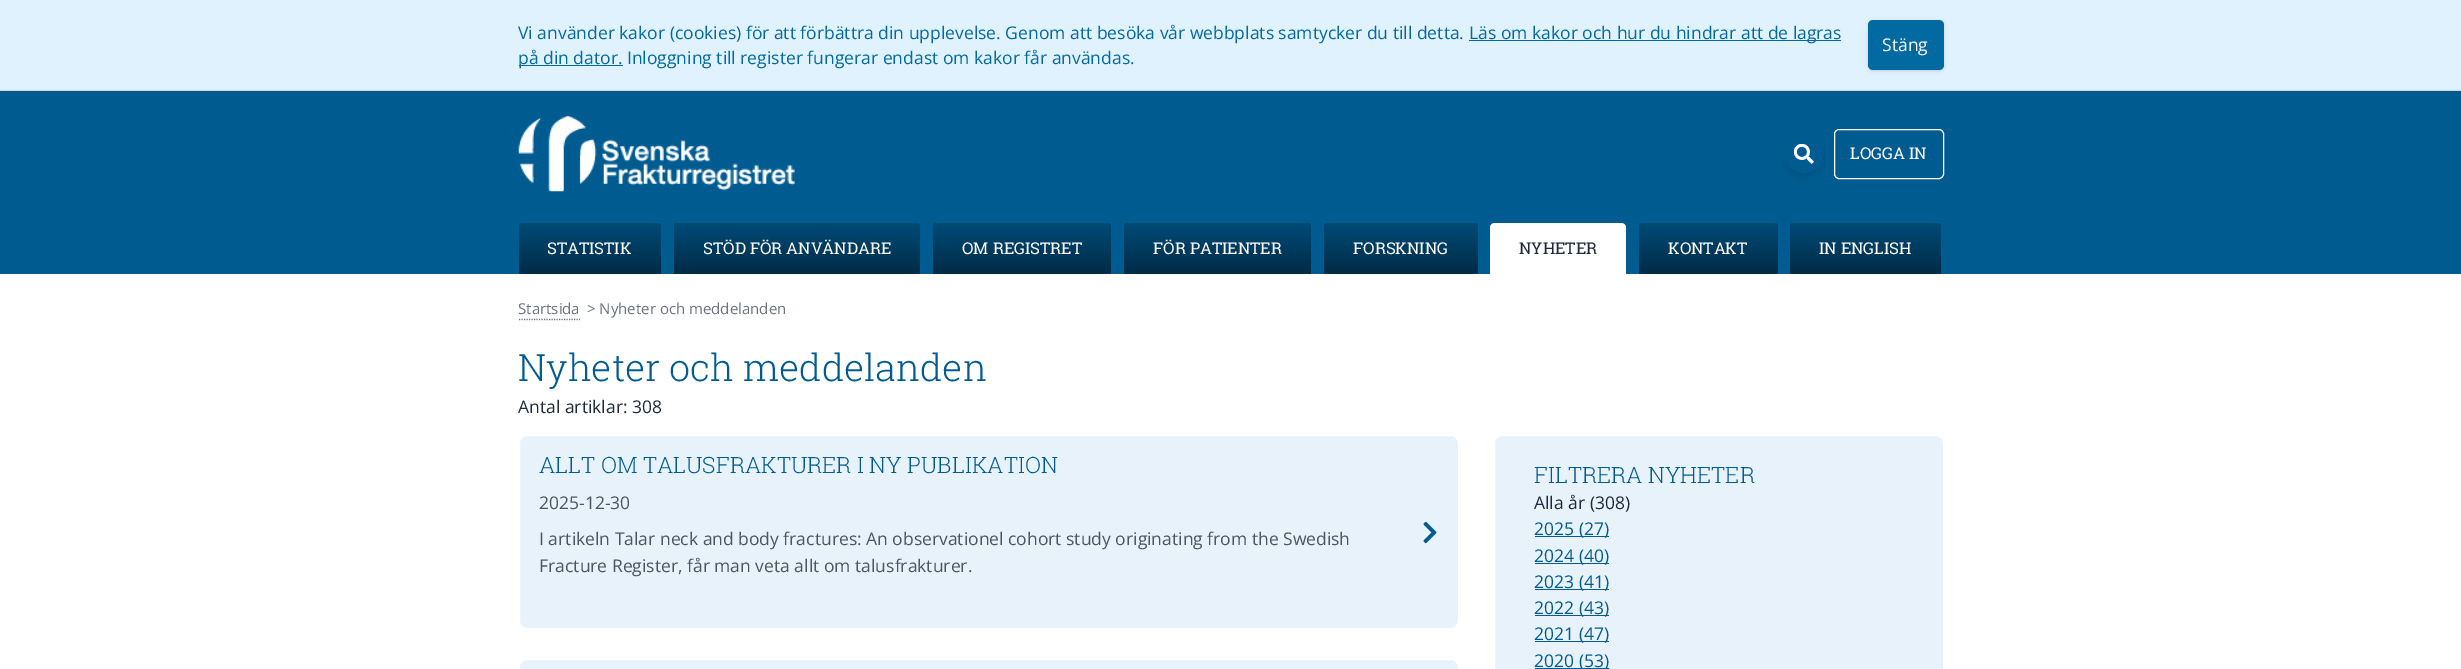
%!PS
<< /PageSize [2461 669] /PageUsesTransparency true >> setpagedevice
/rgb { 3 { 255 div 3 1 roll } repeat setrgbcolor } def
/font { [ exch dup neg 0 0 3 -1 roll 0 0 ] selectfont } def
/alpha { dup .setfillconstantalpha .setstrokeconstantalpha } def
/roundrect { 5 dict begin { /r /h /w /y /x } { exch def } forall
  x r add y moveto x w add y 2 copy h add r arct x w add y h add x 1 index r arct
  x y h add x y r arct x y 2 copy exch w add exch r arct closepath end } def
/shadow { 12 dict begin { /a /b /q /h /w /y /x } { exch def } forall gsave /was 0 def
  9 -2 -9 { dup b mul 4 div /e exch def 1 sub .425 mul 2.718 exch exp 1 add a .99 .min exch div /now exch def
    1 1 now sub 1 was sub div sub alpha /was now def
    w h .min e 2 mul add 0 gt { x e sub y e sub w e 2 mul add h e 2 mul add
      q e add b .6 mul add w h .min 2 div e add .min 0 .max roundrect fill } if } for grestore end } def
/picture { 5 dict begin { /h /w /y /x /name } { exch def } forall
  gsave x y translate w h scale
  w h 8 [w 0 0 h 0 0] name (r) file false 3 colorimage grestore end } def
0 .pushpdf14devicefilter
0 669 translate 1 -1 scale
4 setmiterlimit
255 255 255 rgb
0 0 2461 669 rectfill
[
  [0 91 2461 183 0 91 145]
  [0 0 2461 90 224 242 254]
  [0 90 2461 1 209 213 219]
  [1469 40 372 1 3 105 161]
  [519 65 104 1 3 105 161]
] { aload pop rgb rectfill } forall
0 0 0 rgb
1869 23 74 47 4 1 0.1 shadow
1868 21 76 50 5 2 0.1 shadow
3 105 161 rgb
1868 20 76 50 5 roundrect fill
(img/1.rgb) 518 116 277 76 picture
gsave
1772 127 moveto 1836 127 lineto 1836 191 lineto 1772 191 lineto closepath 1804 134 moveto 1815 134 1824 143 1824 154 curveto 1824 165 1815 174 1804 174 curveto 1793 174 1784 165 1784 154 curveto 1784 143 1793 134 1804 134 curveto closepath eoclip newpath
0 0 0 rgb
1785 140 38 38 19 4 0.1 shadow
grestore
(img/2.rgb) 1794 144 20 20 picture
255 255 255 rgb
1834.5 129.5 109 49 4.5 roundrect stroke
gsave 524 223 moveto 656 223 lineto 659 223 661 225 661 228 curveto 661 274 lineto 519 274 lineto 519 228 lineto 519 225 521 223 524 223 curveto closepath clip newpath
<< /ShadingType 2 /ColorSpace /DeviceRGB /Coords [590 223 590 274] /Extend [true true] /Function << /FunctionType 2 /Domain [0 1] /C0 [0 0.294 0.471] /C1 [0 0.169 0.271] /N 1 >> >> shfill grestore
gsave 679 223 moveto 915 223 lineto 918 223 920 225 920 228 curveto 920 274 lineto 674 274 lineto 674 228 lineto 674 225 676 223 679 223 curveto closepath clip newpath
<< /ShadingType 2 /ColorSpace /DeviceRGB /Coords [797 223 797 274] /Extend [true true] /Function << /FunctionType 2 /Domain [0 1] /C0 [0 0.294 0.471] /C1 [0 0.169 0.271] /N 1 >> >> shfill grestore
gsave 938 223 moveto 1106 223 lineto 1109 223 1111 225 1111 228 curveto 1111 274 lineto 933 274 lineto 933 228 lineto 933 225 935 223 938 223 curveto closepath clip newpath
<< /ShadingType 2 /ColorSpace /DeviceRGB /Coords [1022 223 1022 274] /Extend [true true] /Function << /FunctionType 2 /Domain [0 1] /C0 [0 0.294 0.471] /C1 [0 0.169 0.271] /N 1 >> >> shfill grestore
gsave 1129 223 moveto 1306 223 lineto 1309 223 1311 225 1311 228 curveto 1311 274 lineto 1124 274 lineto 1124 228 lineto 1124 225 1126 223 1129 223 curveto closepath clip newpath
<< /ShadingType 2 /ColorSpace /DeviceRGB /Coords [1218 223 1218 274] /Extend [true true] /Function << /FunctionType 2 /Domain [0 1] /C0 [0 0.294 0.471] /C1 [0 0.169 0.271] /N 1 >> >> shfill grestore
gsave 1329 223 moveto 1473 223 lineto 1476 223 1478 225 1478 228 curveto 1478 274 lineto 1324 274 lineto 1324 228 lineto 1324 225 1326 223 1329 223 curveto closepath clip newpath
<< /ShadingType 2 /ColorSpace /DeviceRGB /Coords [1401 223 1401 274] /Extend [true true] /Function << /FunctionType 2 /Domain [0 1] /C0 [0 0.294 0.471] /C1 [0 0.169 0.271] /N 1 >> >> shfill grestore
1495 223 moveto 1621 223 lineto 1624 223 1626 225 1626 228 curveto 1626 274 lineto 1490 274 lineto 1490 228 lineto 1490 225 1492 223 1495 223 curveto closepath fill
gsave 1644 223 moveto 1773 223 lineto 1776 223 1778 225 1778 228 curveto 1778 274 lineto 1639 274 lineto 1639 228 lineto 1639 225 1641 223 1644 223 curveto closepath clip newpath
<< /ShadingType 2 /ColorSpace /DeviceRGB /Coords [1708 223 1708 274] /Extend [true true] /Function << /FunctionType 2 /Domain [0 1] /C0 [0 0.294 0.471] /C1 [0 0.169 0.271] /N 1 >> >> shfill grestore
gsave 1795 223 moveto 1936 223 lineto 1939 223 1941 225 1941 228 curveto 1941 274 lineto 1790 274 lineto 1790 228 lineto 1790 225 1792 223 1795 223 curveto closepath clip newpath
<< /ShadingType 2 /ColorSpace /DeviceRGB /Coords [1866 223 1866 274] /Extend [true true] /Function << /FunctionType 2 /Domain [0 1] /C0 [0 0.294 0.471] /C1 [0 0.169 0.271] /N 1 >> >> shfill grestore
107 114 128 rgb
1.2 setlinewidth
[1.25 1.25] 0 setdash
519 319.5 moveto 580 319.5 lineto stroke
231 242 251 rgb
519.5 435.5 939 193 7.5 roundrect gsave fill grestore
255 255 255 rgb
1 setlinewidth
[] 0 setdash
stroke
(img/3.rgb) 1423 521 14 23 picture
231 242 251 rgb
519.5 659.5 939 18 7.5 roundrect gsave fill grestore
255 255 255 rgb
stroke
231 242 251 rgb
1494.5 435.5 449 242 7.5 roundrect gsave fill grestore
255 255 255 rgb
stroke
[
  [1535 536 74 1 0 91 145]
  [1535 563 74 1 0 91 145]
  [1535 589 74 1 0 91 145]
  [1535 615 74 1 0 91 145]
  [1535 641 74 1 0 91 145]
  [1535 668 74 1 0 91 145]
] { aload pop rgb rectfill } forall
/OpenSans-Regular 17.5 font
3 105 161 rgb
[
  [(Vi använder kakor \(cookies\) för att förbättra din upplevelse. Genom att besöka vår webbplats samtycker du till detta.) 518 39]
  [(Läs om kakor och hur du hindrar att de lagras) 1469 39]
  [(på din dator. Inloggning till register fungerar endast om kakor får användas.) 518 64]
] { aload pop moveto show } forall
255 255 255 rgb
1882 51 moveto (Stäng) show
/RobotoSlab-Regular 16.25 font
[
  [(LOGGA IN) 1850 159]
  [(STATISTIK) 547 254]
  [(STÖD FÖR ANVÄNDARE) 703 254]
  [(OM REGISTRET) 962 254]
  [(FÖR PATIENTER) 1153 254]
  [(FORSKNING) 1353 254]
] { aload pop moveto show } forall
31 41 55 rgb
1519 254 moveto (NYHETER) show
255 255 255 rgb
1668 254 moveto (KONTAKT) show
1819 254 moveto (IN ENGLISH) show
/OpenSans-Regular 15 font
107 114 128 rgb
518 314 moveto (Startsida) show
587 314 moveto (> Nyheter och meddelanden) show
/RobotoSlab-Light 37.5 font
0 91 145 rgb
518 381 moveto (Nyheter och meddelanden) show
/OpenSans-Regular 17.5 font
31 41 55 rgb
518 413 moveto (Antal artiklar: 308) show
/RobotoSlab-Light 22.5 font
0 91 145 rgb
539 473 moveto (ALLT OM TALUSFRAKTURER I NY PUBLIKATION) show
/OpenSans-Regular 17.5 font
75 85 99 rgb
[
  [(2025-12-30) 539 509]
  [(I artikeln Talar neck and body fractures: An observationel cohort study originating from the Swedish) 539 545]
  [(Fracture Register, får man veta allt om talusfrakturer.) 539 572]
] { aload pop moveto show } forall
/RobotoSlab-Light 22.5 font
0 91 145 rgb
1534 483 moveto (FILTRERA NYHETER) show
/OpenSans-Regular 17.5 font
31 41 55 rgb
1534 509 moveto (Alla år \(308\)) show
0 91 145 rgb
[
  [(2025 \(27\)) 1534 535]
  [(2024 \(40\)) 1534 562]
  [(2023 \(41\)) 1534 588]
  [(2022 \(43\)) 1534 614]
  [(2021 \(47\)) 1534 640]
  [(2020 \(53\)) 1534 667]
] { aload pop moveto show } forall
.poppdf14devicefilter showpage
